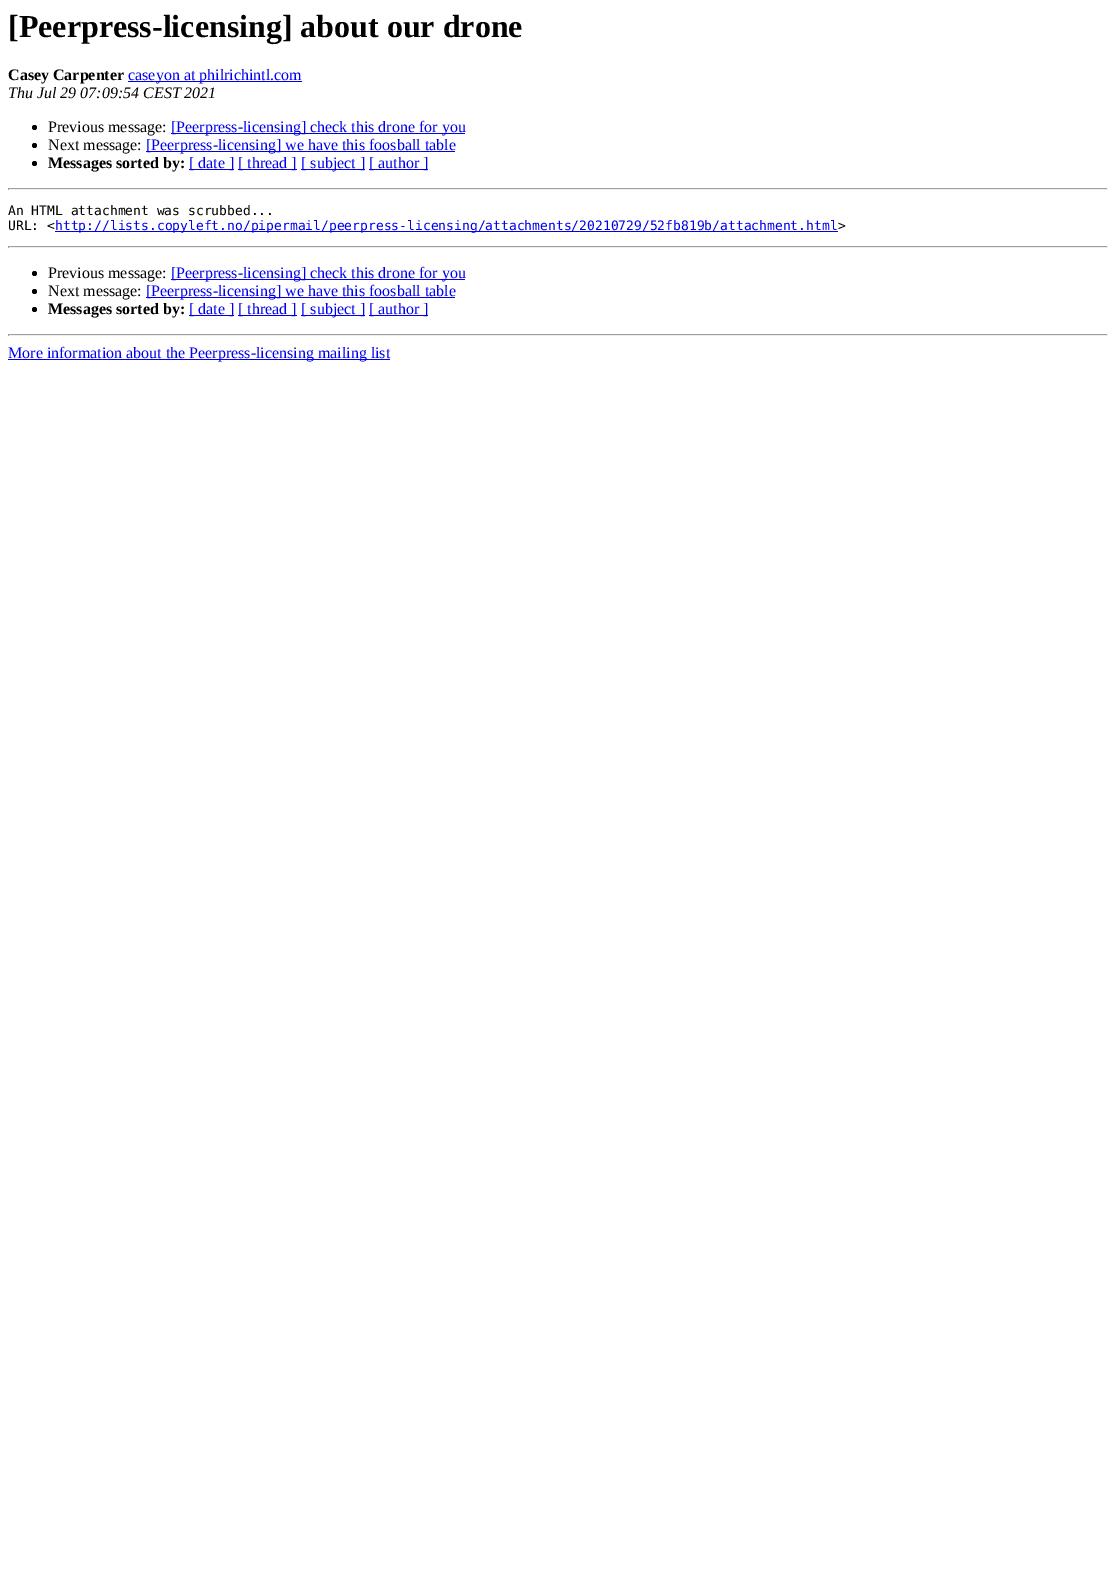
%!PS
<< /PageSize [1116 1595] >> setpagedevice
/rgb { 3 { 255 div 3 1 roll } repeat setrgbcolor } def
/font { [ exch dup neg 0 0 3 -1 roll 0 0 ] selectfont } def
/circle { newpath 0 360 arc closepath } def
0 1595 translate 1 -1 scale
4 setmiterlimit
255 255 255 rgb
0 0 1116 1595 rectfill
0 0 238 rgb
128 81 174 1 rectfill
0 0 0 rgb
34.5 127.5 2.5 circle fill
0 0 238 rgb
171 133 294 1 rectfill
0 0 0 rgb
34.5 145.5 2.5 circle fill
0 0 238 rgb
146 151 309 1 rectfill
0 0 0 rgb
34.5 163.5 2.5 circle fill
[
  [189 169 45 1 0 0 238]
  [238 169 59 1 0 0 238]
  [301 169 64 1 0 0 238]
  [369 169 59 1 0 0 238]
  [8 188 1100 1 159 159 159]
  [1107 188 1 2 238 238 238]
  [8 189 1100 1 238 238 238]
  [8 188 1 2 159 159 159]
  [55 231 783 1 0 0 238]
  [8 246 1100 1 159 159 159]
  [1107 246 1 2 238 238 238]
  [8 247 1100 1 238 238 238]
  [8 246 1 2 159 159 159]
] { aload pop rgb rectfill } forall
0 0 0 rgb
34.5 273.5 2.5 circle fill
0 0 238 rgb
171 279 294 1 rectfill
0 0 0 rgb
34.5 291.5 2.5 circle fill
0 0 238 rgb
146 297 309 1 rectfill
0 0 0 rgb
34.5 309.5 2.5 circle fill
[
  [189 315 45 1 0 0 238]
  [238 315 59 1 0 0 238]
  [301 315 64 1 0 0 238]
  [369 315 59 1 0 0 238]
  [8 334 1100 1 159 159 159]
  [1107 334 1 2 238 238 238]
  [8 335 1100 1 238 238 238]
  [8 334 1 2 159 159 159]
  [8 359 382 1 0 0 238]
] { aload pop rgb rectfill } forall
/LiberationSerif-Bold 32 font
0 0 0 rgb
8 37 moveto ([Peerpress-licensing] about our drone) show
/LiberationSerif-Bold 16 font
8 80 moveto (Casey Carpenter) show
/LiberationSerif-Regular 16 font
0 0 238 rgb
128 80 moveto (caseyon at philrichintl.com) show
/LiberationSerif-Italic 16 font
0 0 0 rgb
8 98 moveto (Thu Jul 29 07:09:54 CEST 2021) show
/LiberationSerif-Regular 16 font
48 132 moveto (Previous message:) show
0 0 238 rgb
171 132 moveto ([Peerpress-licensing] check this drone for you) show
0 0 0 rgb
48 150 moveto (Next message:) show
0 0 238 rgb
146 150 moveto ([Peerpress-licensing] we have this foosball table) show
/LiberationSerif-Bold 16 font
0 0 0 rgb
48 168 moveto (Messages sorted by:) show
/LiberationSerif-Regular 16 font
0 0 238 rgb
[
  [([ date ]) 189 168]
  [([ thread ]) 238 168]
  [([ subject ]) 301 168]
  [([ author ]) 369 168]
] { aload pop moveto show } forall
/DejaVuSansMono-Regular 13 font
0 0 0 rgb
8 215 moveto (An HTML attachment was scrubbed...) show
8 230 moveto (URL: <) show
0 0 238 rgb
55 230 moveto (http://lists.copyleft.no/pipermail/peerpress-licensing/attachments/20210729/52fb819b/attachment.html) show
0 0 0 rgb
838 230 moveto (>) show
/LiberationSerif-Regular 16 font
48 278 moveto (Previous message:) show
0 0 238 rgb
171 278 moveto ([Peerpress-licensing] check this drone for you) show
0 0 0 rgb
48 296 moveto (Next message:) show
0 0 238 rgb
146 296 moveto ([Peerpress-licensing] we have this foosball table) show
/LiberationSerif-Bold 16 font
0 0 0 rgb
48 314 moveto (Messages sorted by:) show
/LiberationSerif-Regular 16 font
0 0 238 rgb
[
  [([ date ]) 189 314]
  [([ thread ]) 238 314]
  [([ subject ]) 301 314]
  [([ author ]) 369 314]
  [(More information about the Peerpress-licensing mailing list) 8 358]
] { aload pop moveto show } forall
showpage
